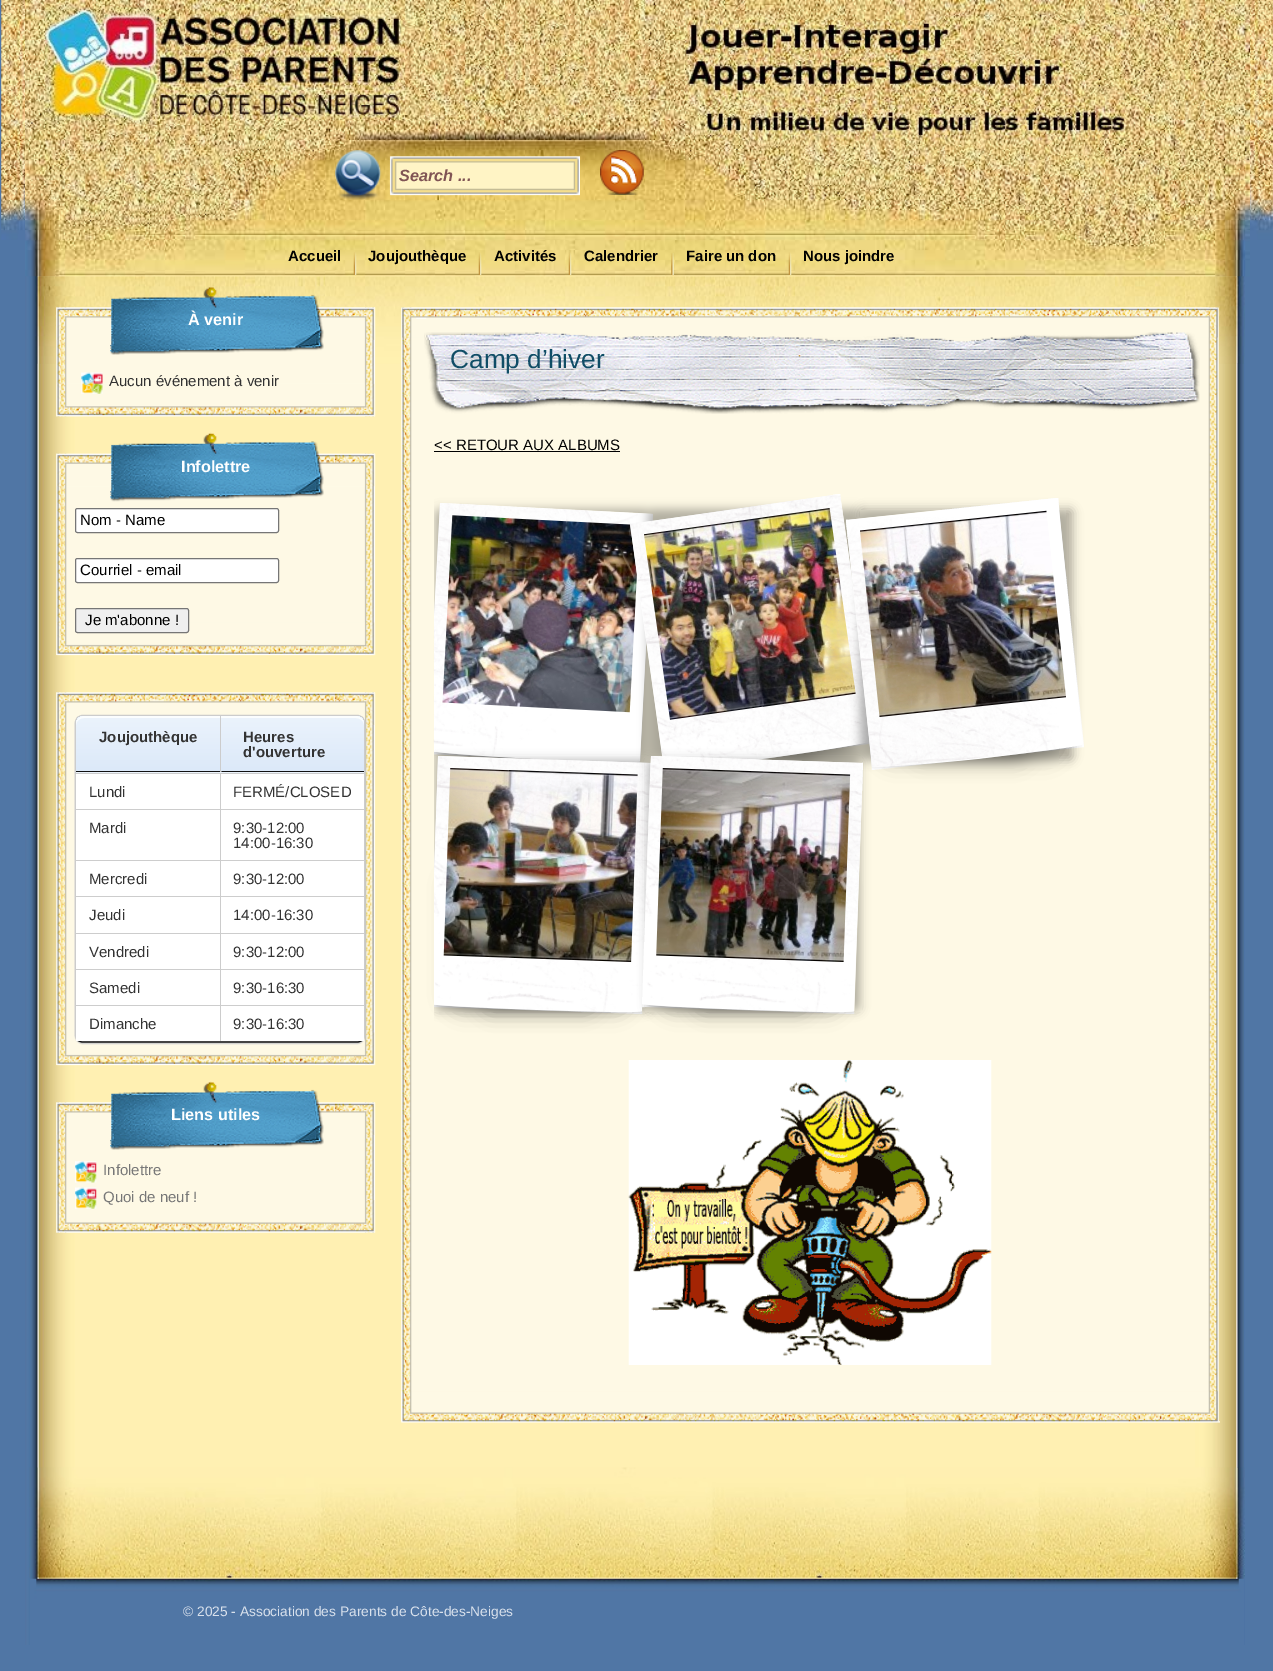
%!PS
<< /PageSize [1273 1671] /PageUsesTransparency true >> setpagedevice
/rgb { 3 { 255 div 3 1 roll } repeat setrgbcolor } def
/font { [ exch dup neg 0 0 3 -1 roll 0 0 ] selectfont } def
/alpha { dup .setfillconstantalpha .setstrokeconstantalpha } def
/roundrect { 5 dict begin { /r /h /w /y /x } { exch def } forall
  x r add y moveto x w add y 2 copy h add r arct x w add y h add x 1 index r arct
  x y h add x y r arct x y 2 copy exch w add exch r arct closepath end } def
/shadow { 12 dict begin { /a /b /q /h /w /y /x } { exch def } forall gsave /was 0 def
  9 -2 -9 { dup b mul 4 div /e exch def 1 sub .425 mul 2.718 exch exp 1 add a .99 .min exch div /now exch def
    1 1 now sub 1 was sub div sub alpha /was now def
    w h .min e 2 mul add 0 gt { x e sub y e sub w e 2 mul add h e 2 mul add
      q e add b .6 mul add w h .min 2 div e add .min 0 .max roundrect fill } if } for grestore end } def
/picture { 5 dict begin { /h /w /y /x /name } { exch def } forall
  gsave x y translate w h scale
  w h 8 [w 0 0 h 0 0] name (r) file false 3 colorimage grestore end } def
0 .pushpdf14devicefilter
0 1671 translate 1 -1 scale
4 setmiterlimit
80 118 165 rgb
0 0 1273 1671 rectfill
(img/1.rgb) 1 0 1272 240 picture
(img/2.rgb) 25 276 1225 1369 picture
(img/11.rgb) 35 276 1210 88 picture
(img/3.rgb) 25 0 1225 277 picture
(img/4.rgb) 335 150 245 50 picture
(img/5.rgb) 600 150 44 45 picture
(img/6.rgb) 353 252 4 23 picture
(img/7.rgb) 478 252 4 23 picture
(img/8.rgb) 568 252 4 23 picture
(img/9.rgb) 671 253 3 22 picture
(img/10.rgb) 788 252 4 23 picture
(img/12.rgb) 29 1467 1216 111 picture
(img/13.rgb) 56 307 320 110 picture
(img/14.rgb) 56 307 320 33 picture
(img/15.rgb) 56 383 320 34 picture
(img/16.rgb) 110 286 214 69 picture
(img/17.rgb) 81 372 22 22 picture
(img/18.rgb) 56 453 320 202 picture
(img/19.rgb) 56 453 320 34 picture
(img/20.rgb) 56 622 320 34 picture
(img/21.rgb) 110 432 214 70 picture
255 255 255 rgb
75.5 508.5 203 24 2 roundrect gsave fill grestore
118 118 118 rgb
stroke
255 255 255 rgb
75.5 558.5 203 24 2 roundrect gsave fill grestore
118 118 118 rgb
stroke
239 239 239 rgb
75.5 608.5 113 24 2 roundrect gsave fill grestore
118 118 118 rgb
stroke
(img/22.rgb) 56 692 320 373 picture
(img/23.rgb) 56 692 320 33 picture
(img/24.rgb) 56 1032 320 34 picture
204 204 204 rgb
75 716 290 328 8 0.5 1 shadow
17 17 17 rgb
1.2 setlinewidth
362.5 1040 moveto 361 1041 359.5 1042 357.5 1042 curveto 82.5 1042 lineto 80.5 1042 79 1041 77.5 1040 curveto stroke
204 204 204 rgb
77.5 1040 moveto 76.5 1038.5 75.5 1037 75.5 1035 curveto 75.5 722.5 lineto 75.5 720.5 76.5 719 77.5 717.5 curveto 79 716.5 80.5 715.5 82.5 715.5 curveto 357.5 715.5 lineto 359.5 715.5 361 716.5 362.5 717.5 curveto 363.5 719 364.5 720.5 364.5 722.5 curveto 364.5 1035 lineto 364.5 1037 363.5 1038.5 362.5 1040 curveto stroke
gsave 84 716 moveto 220 716 lineto 220 771 lineto 76 771 lineto 76 724 lineto 76 719.5 79.5 716 84 716 curveto closepath clip newpath
<< /ShadingType 2 /ColorSpace /DeviceRGB /Coords [148 716 148 771] /Extend [true true] /Function << /FunctionType 2 /Domain [0 1] /C0 [0.922 0.953 0.988] /C1 [0.863 0.914 0.976] /N 1 >> >> shfill grestore
gsave 76 772 moveto 220 772 lineto 220 773 lineto 76 773 lineto closepath clip newpath
<< /ShadingType 2 /ColorSpace /DeviceRGB /Coords [148 771 148 826] /Extend [true true] /Function << /FunctionType 2 /Domain [0 1] /C0 [0.922 0.953 0.988] /C1 [0.863 0.914 0.976] /N 1 >> >> shfill grestore
251 253 254 rgb
84 718 moveto 220 718 lineto 220 716 lineto 84 716 lineto 80 716 76 720 76 724 curveto 76 725 lineto 76 721 80 718 84 718 curveto closepath fill
17 17 17 rgb
76 771 144 1 rectfill
gsave 220 716 moveto 356 716 lineto 360.5 716 364 719.5 364 724 curveto 364 771 lineto 220 771 lineto closepath clip newpath
<< /ShadingType 2 /ColorSpace /DeviceRGB /Coords [293 716 293 771] /Extend [true true] /Function << /FunctionType 2 /Domain [0 1] /C0 [0.922 0.953 0.988] /C1 [0.863 0.914 0.976] /N 1 >> >> shfill grestore
gsave 220 771 moveto 364 771 lineto 364 773 lineto 220 773 lineto closepath clip newpath
<< /ShadingType 2 /ColorSpace /DeviceRGB /Coords [293 771 293 826] /Extend [true true] /Function << /FunctionType 2 /Domain [0 1] /C0 [0.922 0.953 0.988] /C1 [0.863 0.914 0.976] /N 1 >> >> shfill grestore
251 253 254 rgb
221 718 moveto 356 718 lineto 360 718 364 721 364 725 curveto 364 724 lineto 364 720 360 716 356 716 curveto 221 716 lineto closepath fill
17 17 17 rgb
364 772 moveto 220 772 lineto 222 771 lineto 364 771 lineto closepath fill
204 204 204 rgb
220 716 moveto 220 772 lineto 222 771 lineto 221 771 lineto 221 716 lineto closepath fill
[
  [76 774 288 35 255 255 255]
  [220 773 1 36 204 204 204]
  [76 810 288 50 255 255 255]
  [220 809 1 51 204 204 204]
  [76 861 288 35 255 255 255]
  [220 860 1 36 204 204 204]
  [76 897 288 36 255 255 255]
  [220 896 1 37 204 204 204]
  [76 934 288 35 255 255 255]
  [220 933 1 36 204 204 204]
  [76 970 288 35 255 255 255]
  [220 969 1 36 204 204 204]
  [76 1006 288 35 255 255 255]
  [220 1005 1 36 204 204 204]
] { aload pop rgb rectfill } forall
(img/25.rgb) 56 1102 320 131 picture
(img/23.rgb) 56 1102 320 33 picture
(img/26.rgb) 56 1200 320 33 picture
(img/27.rgb) 110 1081 214 69 picture
(img/28.rgb) 75 1161 22 22 picture
(img/29.rgb) 75 1187 22 22 picture
(img/30.rgb) 401 307 818 1115 picture
(img/31.rgb) 402 307 816 31 picture
(img/32.rgb) 401 1391 819 32 picture
(img/33.rgb) 424 332 776 82 picture
0 0 0 rgb
434 451 186 1 rectfill
gsave
434 433 752 957 rectclip
255 255 255 rgb
440 503 moveto 653 514 lineto 640 765 lineto 427 754 lineto closepath fill
grestore
gsave
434 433 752 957 rectclip
435 509 213 251 3 5 0.3 shadow
448 620 148 139 13 10 0.3 shadow
grestore
479 621 149 139 13 10 0.3 shadow
gsave
434 433 752 957 rectclip
255 255 255 rgb
440 503 moveto 653 514 lineto 640 761 lineto 640 763 592 762 533 759 curveto 475 756 427 752 427 750 curveto closepath fill
grestore
(img/34.rgb) 442 515 195 198 picture
(img/35.rgb) 433 503 205 253 picture
255 255 255 rgb
630 524 moveto 840 494 lineto 875 743 lineto 665 773 lineto closepath fill
0 0 0 rgb
648 509 212 251 3 5 0.3 shadow
700 619 149 137 13 10 0.3 shadow
669 623 149 138 13 10 0.3 shadow
255 255 255 rgb
630 524 moveto 840 494 lineto 875 740 lineto 875 742 828 750 770 758 curveto 712 766 665 771 664 770 curveto closepath fill
(img/36.rgb) 644 508 212 212 picture
(img/37.rgb) 630 495 240 265 picture
846 520 moveto 1058 498 lineto 1084 747 lineto 872 770 lineto closepath fill
0 0 0 rgb
860 509 213 251 3 5 0.3 shadow
911 619 149 139 13 10 0.3 shadow
880 623 149 138 13 10 0.3 shadow
255 255 255 rgb
846 520 moveto 1058 498 lineto 1083 744 lineto 1084 746 1036 752 978 759 curveto 920 765 872 768 872 767 curveto closepath fill
(img/38.rgb) 860 510 206 207 picture
(img/39.rgb) 848 517 211 251 picture
gsave
434 433 752 957 rectclip
438 756 moveto 651 763 lineto 642 1014 lineto 429 1007 lineto closepath fill
grestore
gsave
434 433 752 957 rectclip
0 0 0 rgb
435 760 213 251 3 5 0.3 shadow
grestore
0 0 0 rgb
449 871 149 139 13 10 0.3 shadow
480 873 149 138 13 10 0.3 shadow
gsave
434 433 752 957 rectclip
255 255 255 rgb
438 756 moveto 651 763 lineto 642 1011 lineto 642 1013 594 1012 536 1010 curveto 477 1008 429 1005 430 1004 curveto closepath fill
grestore
(img/40.rgb) 443 768 195 194 picture
(img/41.rgb) 434 756 216 256 picture
255 255 255 rgb
651 756 moveto 863 763 lineto 854 1014 lineto 642 1007 lineto closepath fill
0 0 0 rgb
648 760 212 251 3 5 0.3 shadow
661 871 149 139 13 10 0.3 shadow
693 873 148 138 13 10 0.3 shadow
255 255 255 rgb
651 756 moveto 863 763 lineto 854 1011 lineto 854 1013 807 1012 748 1010 curveto 689 1008 642 1005 642 1004 curveto closepath fill
(img/42.rgb) 656 768 195 194 picture
(img/43.rgb) 645 756 217 256 picture
(img/44.rgb) 628 1060 364 305 picture
(img/45.rgb) 30 1578 1214 67 picture
/LiberationSans-BoldItalic 16.25 font
128 84 84 rgb
399 181 moveto (Search ...) show
/LiberationSans-Bold 15 font
0 0 0 rgb
[
  [(Accueil) 288 261]
  [(Joujouthèque) 368 261]
  [(Activités) 494 261]
  [(Calendrier) 584 261]
  [(Faire un don) 686 261]
  [(Nous joindre) 803 261]
] { aload pop moveto show } forall
/LiberationSans-Bold 16.25 font
255 255 255 rgb
188 325 moveto (À venir) show
/LiberationSans-Regular 15 font
51 51 51 rgb
109 386 moveto (Aucun événement à venir) show
/LiberationSans-Bold 16.25 font
255 255 255 rgb
181 472 moveto (Infolettre) show
/LiberationSans-Regular 15 font
0 0 0 rgb
[
  [(Nom - Name) 80 525]
  [(Courriel - email) 80 575]
  [(Je m'abonne !) 85 625]
] { aload pop moveto show } forall
/LiberationSans-Bold 15 font
51 51 51 rgb
[
  [(Joujouthèque) 99 742]
  [(Heures) 243 742]
  [(d'ouverture) 243 757]
] { aload pop moveto show } forall
/LiberationSans-Regular 15 font
[
  [(Lundi) 89 797]
  [(FERMÉ/CLOSED) 233 797]
  [(Mardi) 89 833]
  [(9:30-12:00) 233 833]
  [(14:00-16:30) 233 848]
  [(Mercredi) 89 884]
  [(9:30-12:00) 233 884]
  [(Jeudi) 89 920]
  [(14:00-16:30) 233 920]
  [(Vendredi) 89 957]
  [(9:30-12:00) 233 957]
  [(Samedi) 89 993]
  [(9:30-16:30) 233 993]
  [(Dimanche) 89 1029]
  [(9:30-16:30) 233 1029]
] { aload pop moveto show } forall
/LiberationSans-Bold 16.25 font
255 255 255 rgb
171 1120 moveto (Liens utiles) show
/LiberationSans-Regular 15 font
119 119 119 rgb
103 1175 moveto (Infolettre) show
103 1202 moveto (Quoi de neuf !) show
/LiberationSans-Regular 26.25 font
16 77 102 rgb
450 368 moveto (Camp d’hiver) show
/LiberationSans-Regular 15 font
0 0 0 rgb
434 450 moveto (<< RETOUR AUX ALBUMS) show
/LiberationSans-Regular 13.75 font
217 225 236 rgb
183 1616 moveto (© 2025 - Association des Parents de Côte-des-Neiges) show
.poppdf14devicefilter showpage
